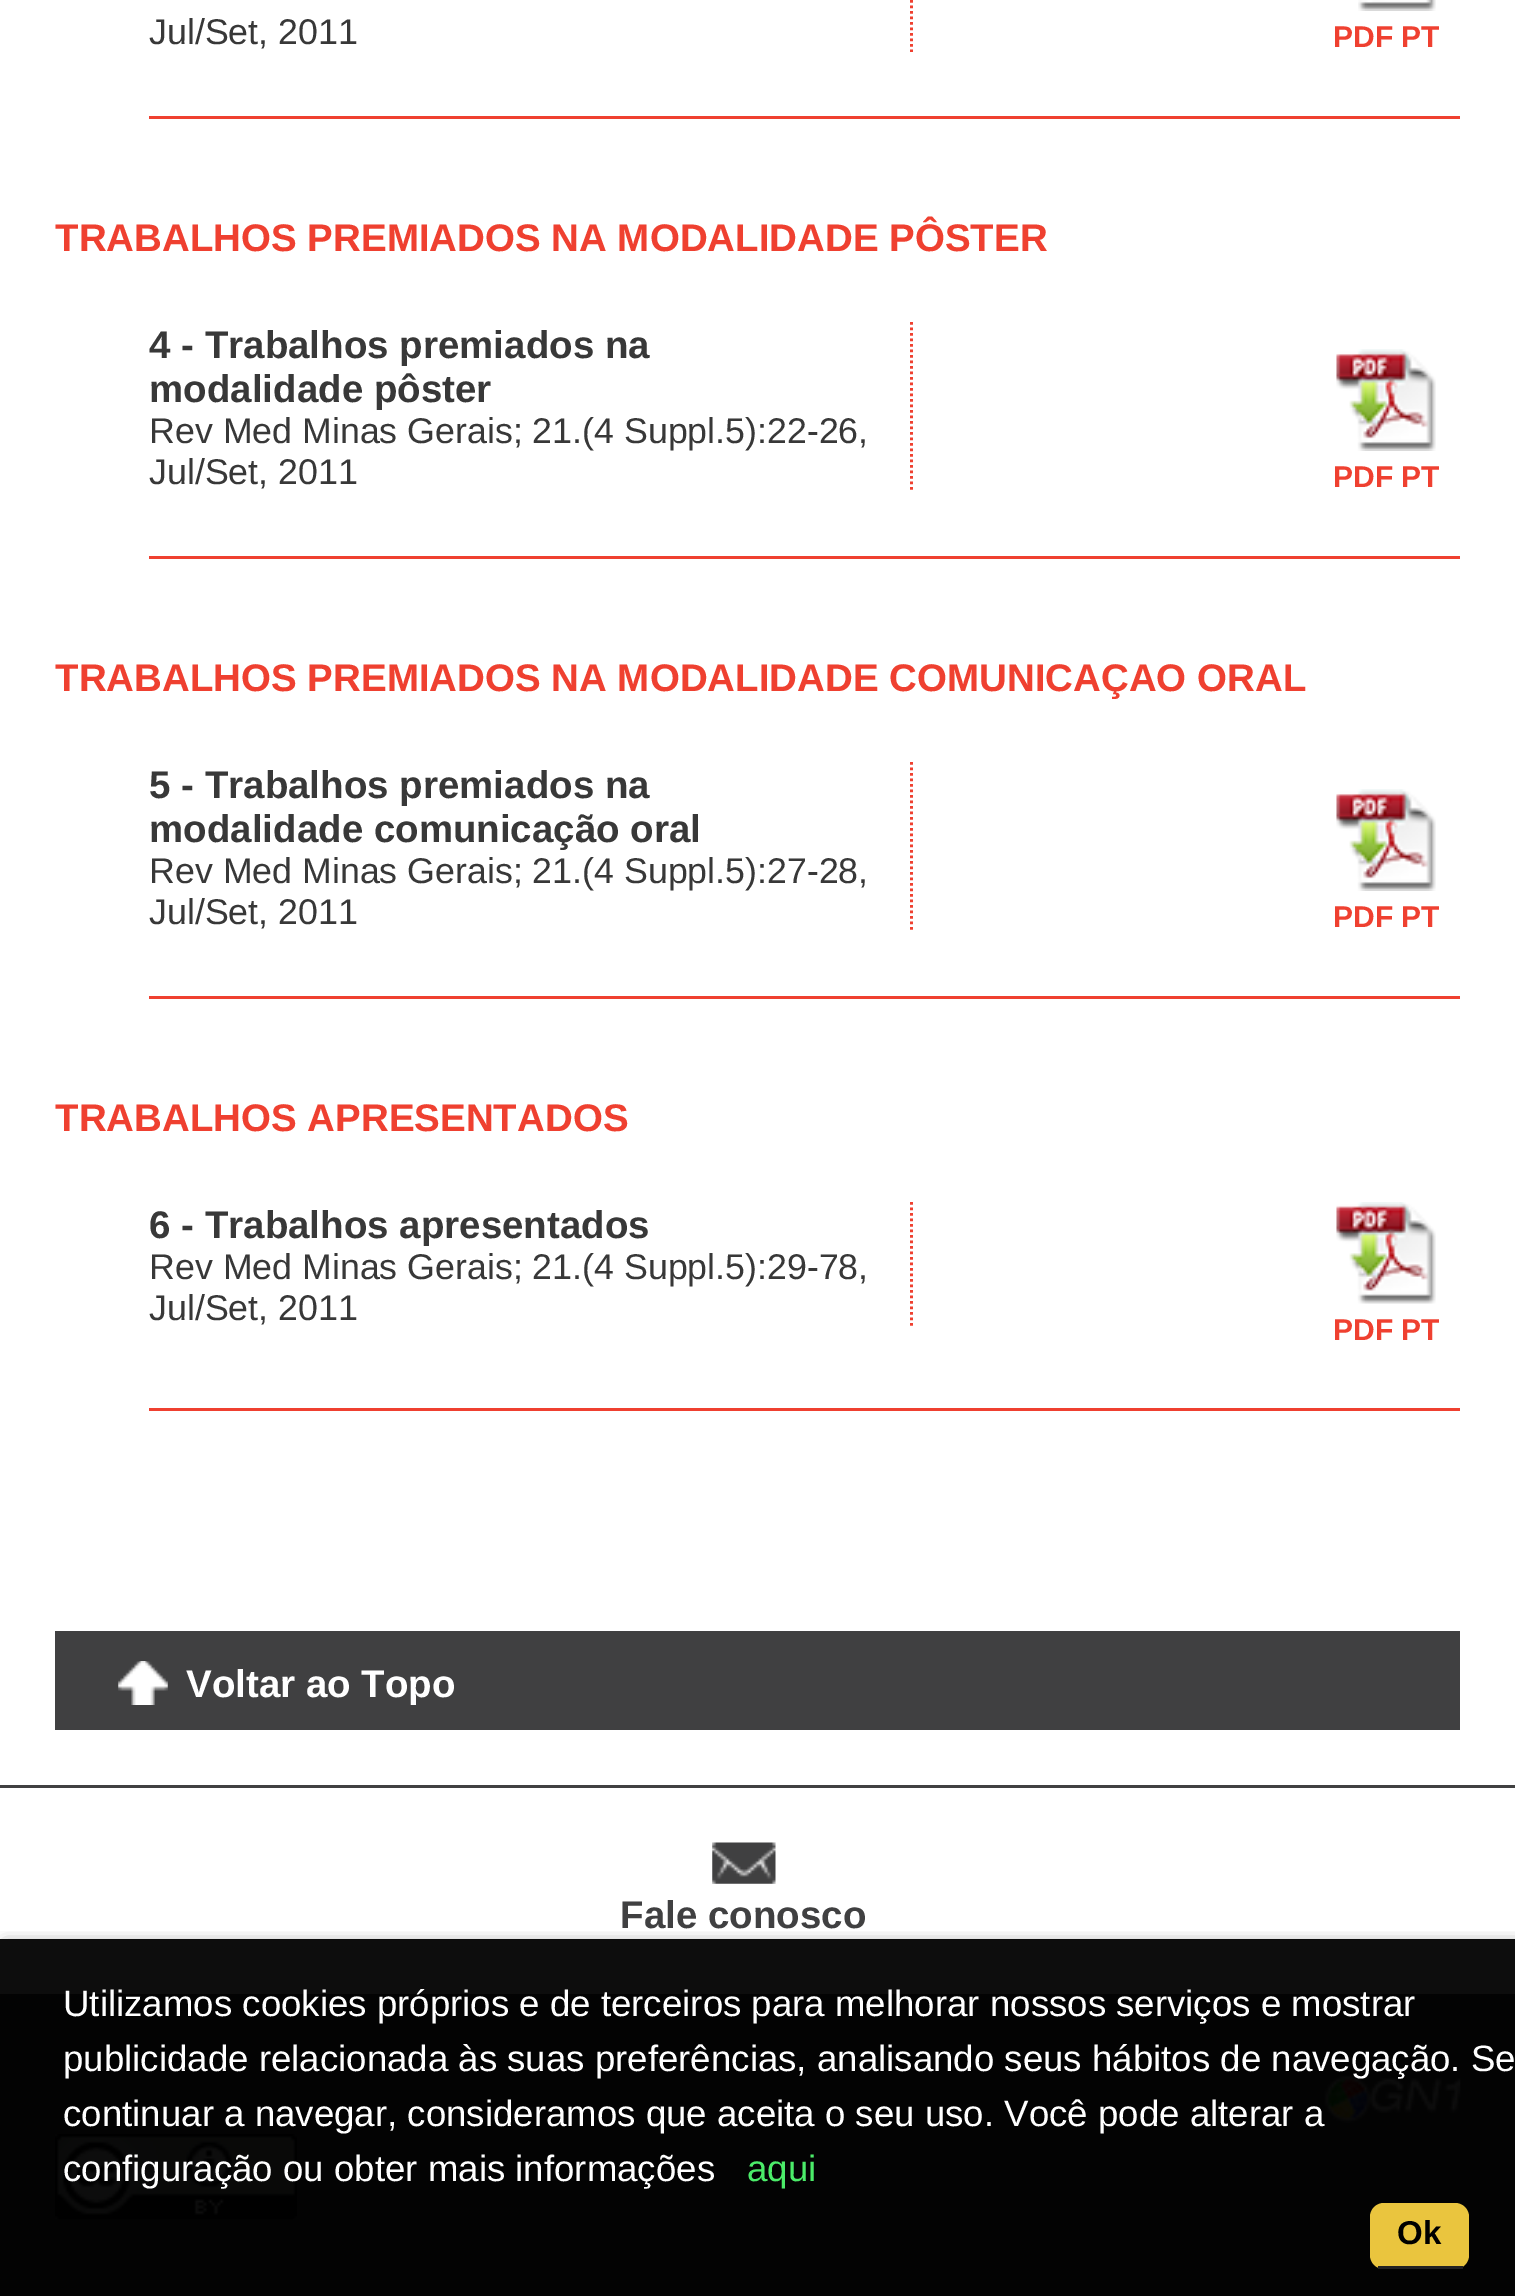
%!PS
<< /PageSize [1515 2296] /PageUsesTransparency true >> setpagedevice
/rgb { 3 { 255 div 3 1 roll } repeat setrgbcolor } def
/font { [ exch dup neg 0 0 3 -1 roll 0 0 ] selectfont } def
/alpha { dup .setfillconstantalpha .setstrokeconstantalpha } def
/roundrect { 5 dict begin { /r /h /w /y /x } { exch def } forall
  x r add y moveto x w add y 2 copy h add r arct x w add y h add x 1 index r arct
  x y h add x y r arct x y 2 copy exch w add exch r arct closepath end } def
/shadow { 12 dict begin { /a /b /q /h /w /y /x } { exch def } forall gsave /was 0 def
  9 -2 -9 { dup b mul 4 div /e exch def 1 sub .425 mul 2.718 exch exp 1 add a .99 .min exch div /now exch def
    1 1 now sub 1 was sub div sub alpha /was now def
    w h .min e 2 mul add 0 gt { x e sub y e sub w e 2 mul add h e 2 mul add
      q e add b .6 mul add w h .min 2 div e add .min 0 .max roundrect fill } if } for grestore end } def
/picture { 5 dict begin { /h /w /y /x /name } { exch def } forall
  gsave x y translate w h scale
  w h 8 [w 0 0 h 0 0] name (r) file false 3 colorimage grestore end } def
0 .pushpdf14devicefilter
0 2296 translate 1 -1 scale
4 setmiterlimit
255 255 255 rgb
0 0 1515 2296 rectfill
239 64 48 rgb
149 116 1311 3 rectfill
2.8 setlinewidth
[2.75 2.75] 0 setdash
911.5 -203.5 moveto 911.5 52 lineto stroke
(img/1.rgb) 1358 0 78 11 picture
149 556 1311 3 rectfill
911.5 322 moveto 911.5 492 lineto stroke
(img/2.rgb) 1336 349 100 102 picture
149 996 1311 3 rectfill
911.5 762 moveto 911.5 932 lineto stroke
(img/2.rgb) 1336 789 100 102 picture
149 1408 1311 3 rectfill
911.5 1202 moveto 911.5 1328 lineto stroke
(img/3.rgb) 1336 1202 100 102 picture
64 64 65 rgb
55 1631 1405 99 rectfill
(img/4.rgb) 118 1661 50 44 picture
13 13 13 rgb
0 1939 1515 55 rectfill
64 64 65 rgb
0 1785 1515 3 rectfill
(img/5.rgb) 712 1842 64 42 picture
3 3 3 rgb
0 1994 1515 302 rectfill
(img/6.rgb) 1324 2075 137 48 picture
(img/7.rgb) 55 2134 242 86 picture
gsave
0 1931 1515 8 rectclip
0 0 0 rgb
6 1944 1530 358 0 7 0.6 shadow
grestore
234 197 62 rgb
1370 2203 99 66 14 roundrect fill
34 34 34 rgb
1378 2266 85 3 rectfill
/LiberationSans-Regular 35.75 font
56 56 56 rgb
149 44 moveto (Jul/Set, 2011) show
/LiberationSans-Bold 30 font
239 64 48 rgb
1333 47 moveto (PDF PT) show
/LiberationSans-Bold 38.5 font
55 251 moveto (TRABALHOS PREMIADOS NA MODALIDADE PÔSTER) show
56 56 56 rgb
149 358 moveto (4 - Trabalhos premiados na) show
149 402 moveto (modalidade pôster) show
/LiberationSans-Regular 35.75 font
149 443 moveto (Rev Med Minas Gerais; 21.\(4 Suppl.5\):22-26,) show
149 484 moveto (Jul/Set, 2011) show
/LiberationSans-Bold 30 font
239 64 48 rgb
1333 487 moveto (PDF PT) show
/LiberationSans-Bold 38.5 font
55 691 moveto (TRABALHOS PREMIADOS NA MODALIDADE COMUNICAÇAO ORAL) show
56 56 56 rgb
149 798 moveto (5 - Trabalhos premiados na) show
149 842 moveto (modalidade comunicação oral) show
/LiberationSans-Regular 35.75 font
149 883 moveto (Rev Med Minas Gerais; 21.\(4 Suppl.5\):27-28,) show
149 924 moveto (Jul/Set, 2011) show
/LiberationSans-Bold 30 font
239 64 48 rgb
1333 927 moveto (PDF PT) show
/LiberationSans-Bold 38.5 font
55 1131 moveto (TRABALHOS APRESENTADOS) show
56 56 56 rgb
149 1238 moveto (6 - Trabalhos apresentados) show
/LiberationSans-Regular 35.75 font
149 1279 moveto (Rev Med Minas Gerais; 21.\(4 Suppl.5\):29-78,) show
149 1320 moveto (Jul/Set, 2011) show
/LiberationSans-Bold 30 font
239 64 48 rgb
1333 1340 moveto (PDF PT) show
/LiberationSans-Bold 38.5 font
255 255 255 rgb
186 1697 moveto (Voltar ao Topo) show
64 64 65 rgb
620 1928 moveto (Fale conosco) show
/LiberationSans-Regular 36.65 font
255 255 255 rgb
[
  [(Utilizamos cookies próprios e de terceiros para melhorar nossos serviços e mostrar) 63 2016]
  [(publicidade relacionada às suas preferências, analisando seus hábitos de navegação. Se) 63 2071]
  [(continuar a navegar, consideramos que aceita o seu uso. Você pode alterar a) 63 2126]
  [(configuração ou obter mais informações) 63 2181]
] { aload pop moveto show } forall
75 236 105 rgb
747 2181 moveto (aqui) show
/LiberationSans-Bold 33 font
0 0 0 rgb
1397 2244 moveto (Ok) show
.poppdf14devicefilter showpage
